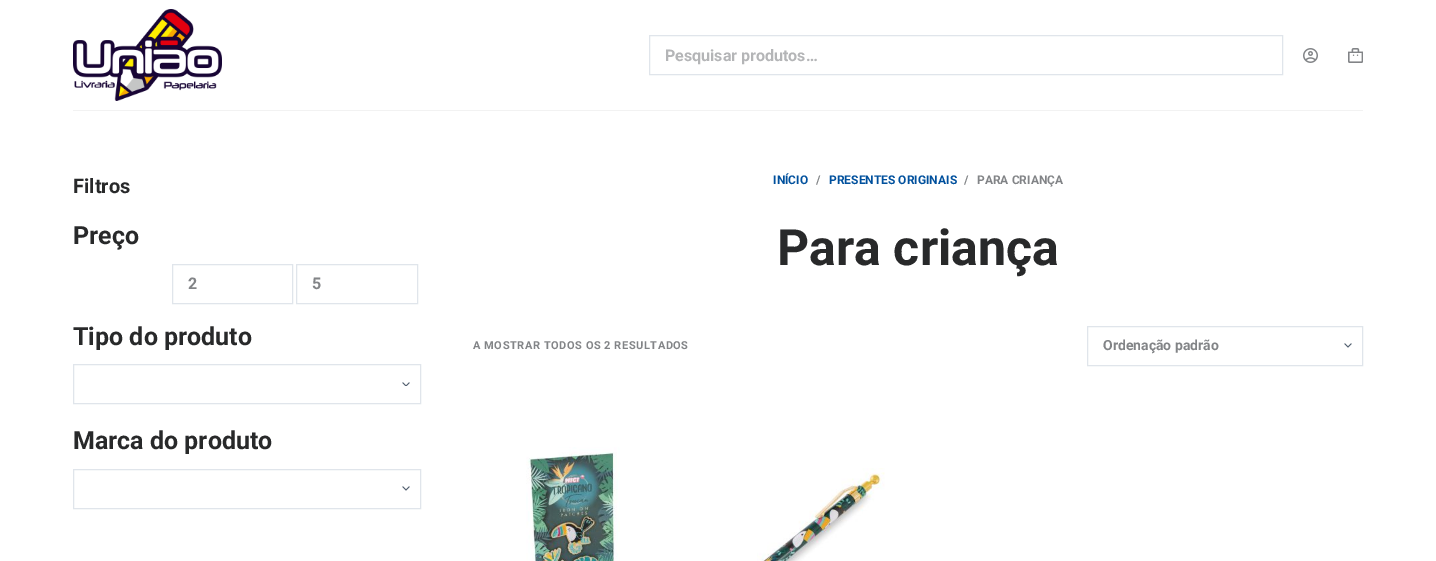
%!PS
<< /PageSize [1436 561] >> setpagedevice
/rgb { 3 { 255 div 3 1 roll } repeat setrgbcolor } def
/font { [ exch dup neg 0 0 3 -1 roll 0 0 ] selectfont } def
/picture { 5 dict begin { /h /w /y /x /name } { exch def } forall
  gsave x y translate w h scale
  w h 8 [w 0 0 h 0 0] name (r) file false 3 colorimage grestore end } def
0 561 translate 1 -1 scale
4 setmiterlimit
255 255 255 rgb
0 0 1436 561 rectfill
242 242 242 rgb
73 110 1290 1 rectfill
(img/1.rgb) 73 9 149 92 picture
224 229 235 rgb
649.5 35.5 633 39 rectstroke
(img/2.rgb) 1303 48 15 15 picture
(img/3.rgb) 1348 48 15 15 picture
172.5 264.5 120 39 rectstroke
296.5 264.5 121 39 rectstroke
(img/4.rgb) 402 382 8 4 picture
73.5 364.5 347 39 rectstroke
(img/5.rgb) 402 486 8 5 picture
73.5 469.5 347 39 rectstroke
(img/5.rgb) 1344 343 8 5 picture
1087.5 326.5 275 39 rectstroke
(img/6.rgb) 526 447 94 114 picture
(img/7.rgb) 757 468 128 93 picture
/Roboto-Bold 16 font
180 181 183 rgb
665 61 moveto (Pesquisar produtos…) show
/Roboto-Bold 20 font
40 41 42 rgb
73 193 moveto (Filtros) show
/Roboto-Bold 25 font
73 244 moveto (Preço) show
/Roboto-Bold 16 font
130 132 135 rgb
188 289 moveto (2) show
312 289 moveto (5) show
/Roboto-Bold 25 font
40 41 42 rgb
73 345 moveto (Tipo do produto) show
73 449 moveto (Marca do produto) show
/Roboto-Bold 12 font
0 80 157 rgb
773 184 moveto (INÍCIO) show
130 132 135 rgb
816 184 moveto (/) show
0 80 157 rgb
829 184 moveto (PRESENTES ORIGINAIS) show
130 132 135 rgb
964 184 moveto (/) show
977 184 moveto (PARA CRIANÇA) show
/Roboto-Bold 50 font
40 41 42 rgb
777 265 moveto (Para criança) show
/Roboto-Bold 11 font
130 132 135 rgb
473 349 moveto 0.55 0 (A MOSTRAR TODOS OS 2 RESULTADOS) ashow
/Roboto-Bold 14 font
1103 350 moveto (Ordenação padrão) show
showpage
